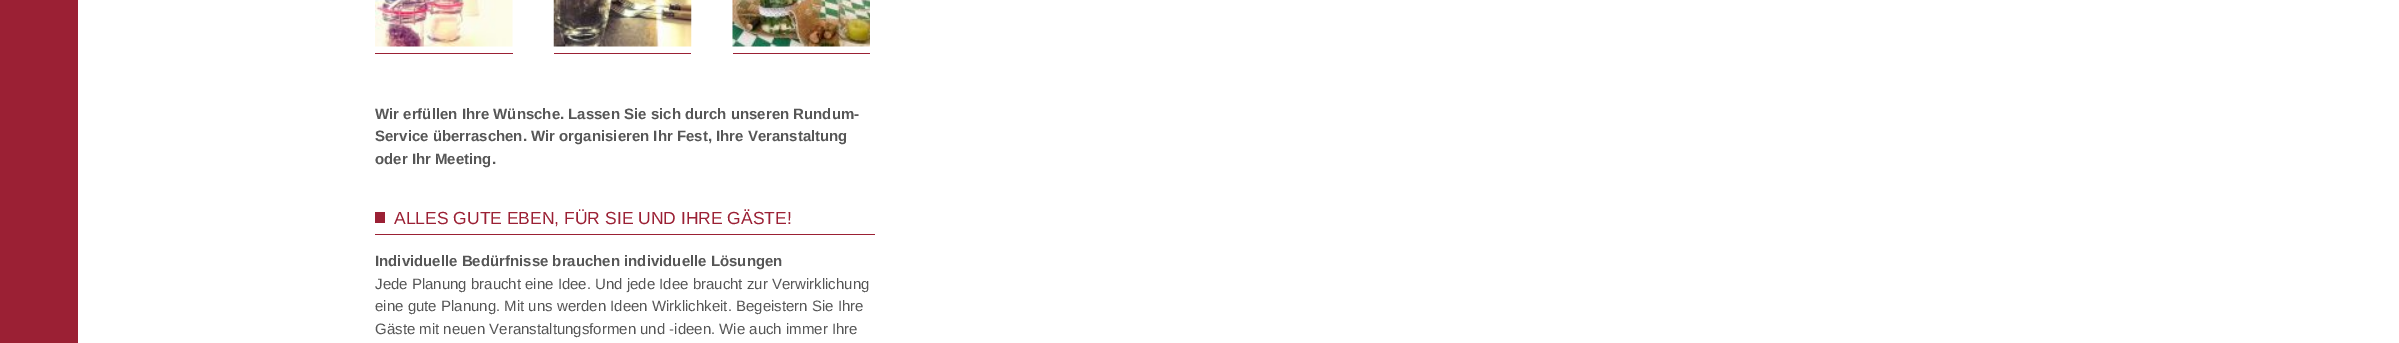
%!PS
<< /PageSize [2399 343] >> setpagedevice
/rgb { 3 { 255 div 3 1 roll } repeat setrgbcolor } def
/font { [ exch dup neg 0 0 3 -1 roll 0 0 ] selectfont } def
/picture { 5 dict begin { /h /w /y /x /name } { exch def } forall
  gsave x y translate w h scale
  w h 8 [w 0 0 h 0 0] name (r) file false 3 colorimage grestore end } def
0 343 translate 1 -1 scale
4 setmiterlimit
255 255 255 rgb
0 0 2399 343 rectfill
155 32 52 rgb
0 0 78 343 rectfill
375 53 138 1 rectfill
(img/1.rgb) 375 0 138 47 picture
554 53 137 1 rectfill
(img/2.rgb) 553 0 139 47 picture
733 53 137 1 rectfill
(img/3.rgb) 732 0 138 47 picture
155 33 53 rgb
375 212 10 11 rectfill
155 32 52 rgb
375 234 500 1 rectfill
/LiberationSans-Bold 15 font
86 86 86 rgb
[
  [(Wir erfüllen Ihre Wünsche. Lassen Sie sich durch unseren Rundum-) 375 119]
  [(Service überraschen. Wir organisieren Ihr Fest, Ihre Veranstaltung) 375 141]
  [(oder Ihr Meeting.) 375 164]
] { aload pop moveto show } forall
/LiberationSans-Regular 17.5 font
155 32 52 rgb
394 224 moveto (ALLES GUTE EBEN, FÜR SIE UND IHRE GÄSTE!) show
/LiberationSans-Bold 15 font
86 86 86 rgb
375 266 moveto (Individuelle Bedürfnisse brauchen individuelle Lösungen) show
/LiberationSans-Regular 15 font
[
  [(Jede Planung braucht eine Idee. Und jede Idee braucht zur Verwirklichung) 375 289]
  [(eine gute Planung. Mit uns werden Ideen Wirklichkeit. Begeistern Sie Ihre) 375 311]
  [(Gäste mit neuen Veranstaltungsformen und -ideen. Wie auch immer Ihre) 375 334]
] { aload pop moveto show } forall
showpage
